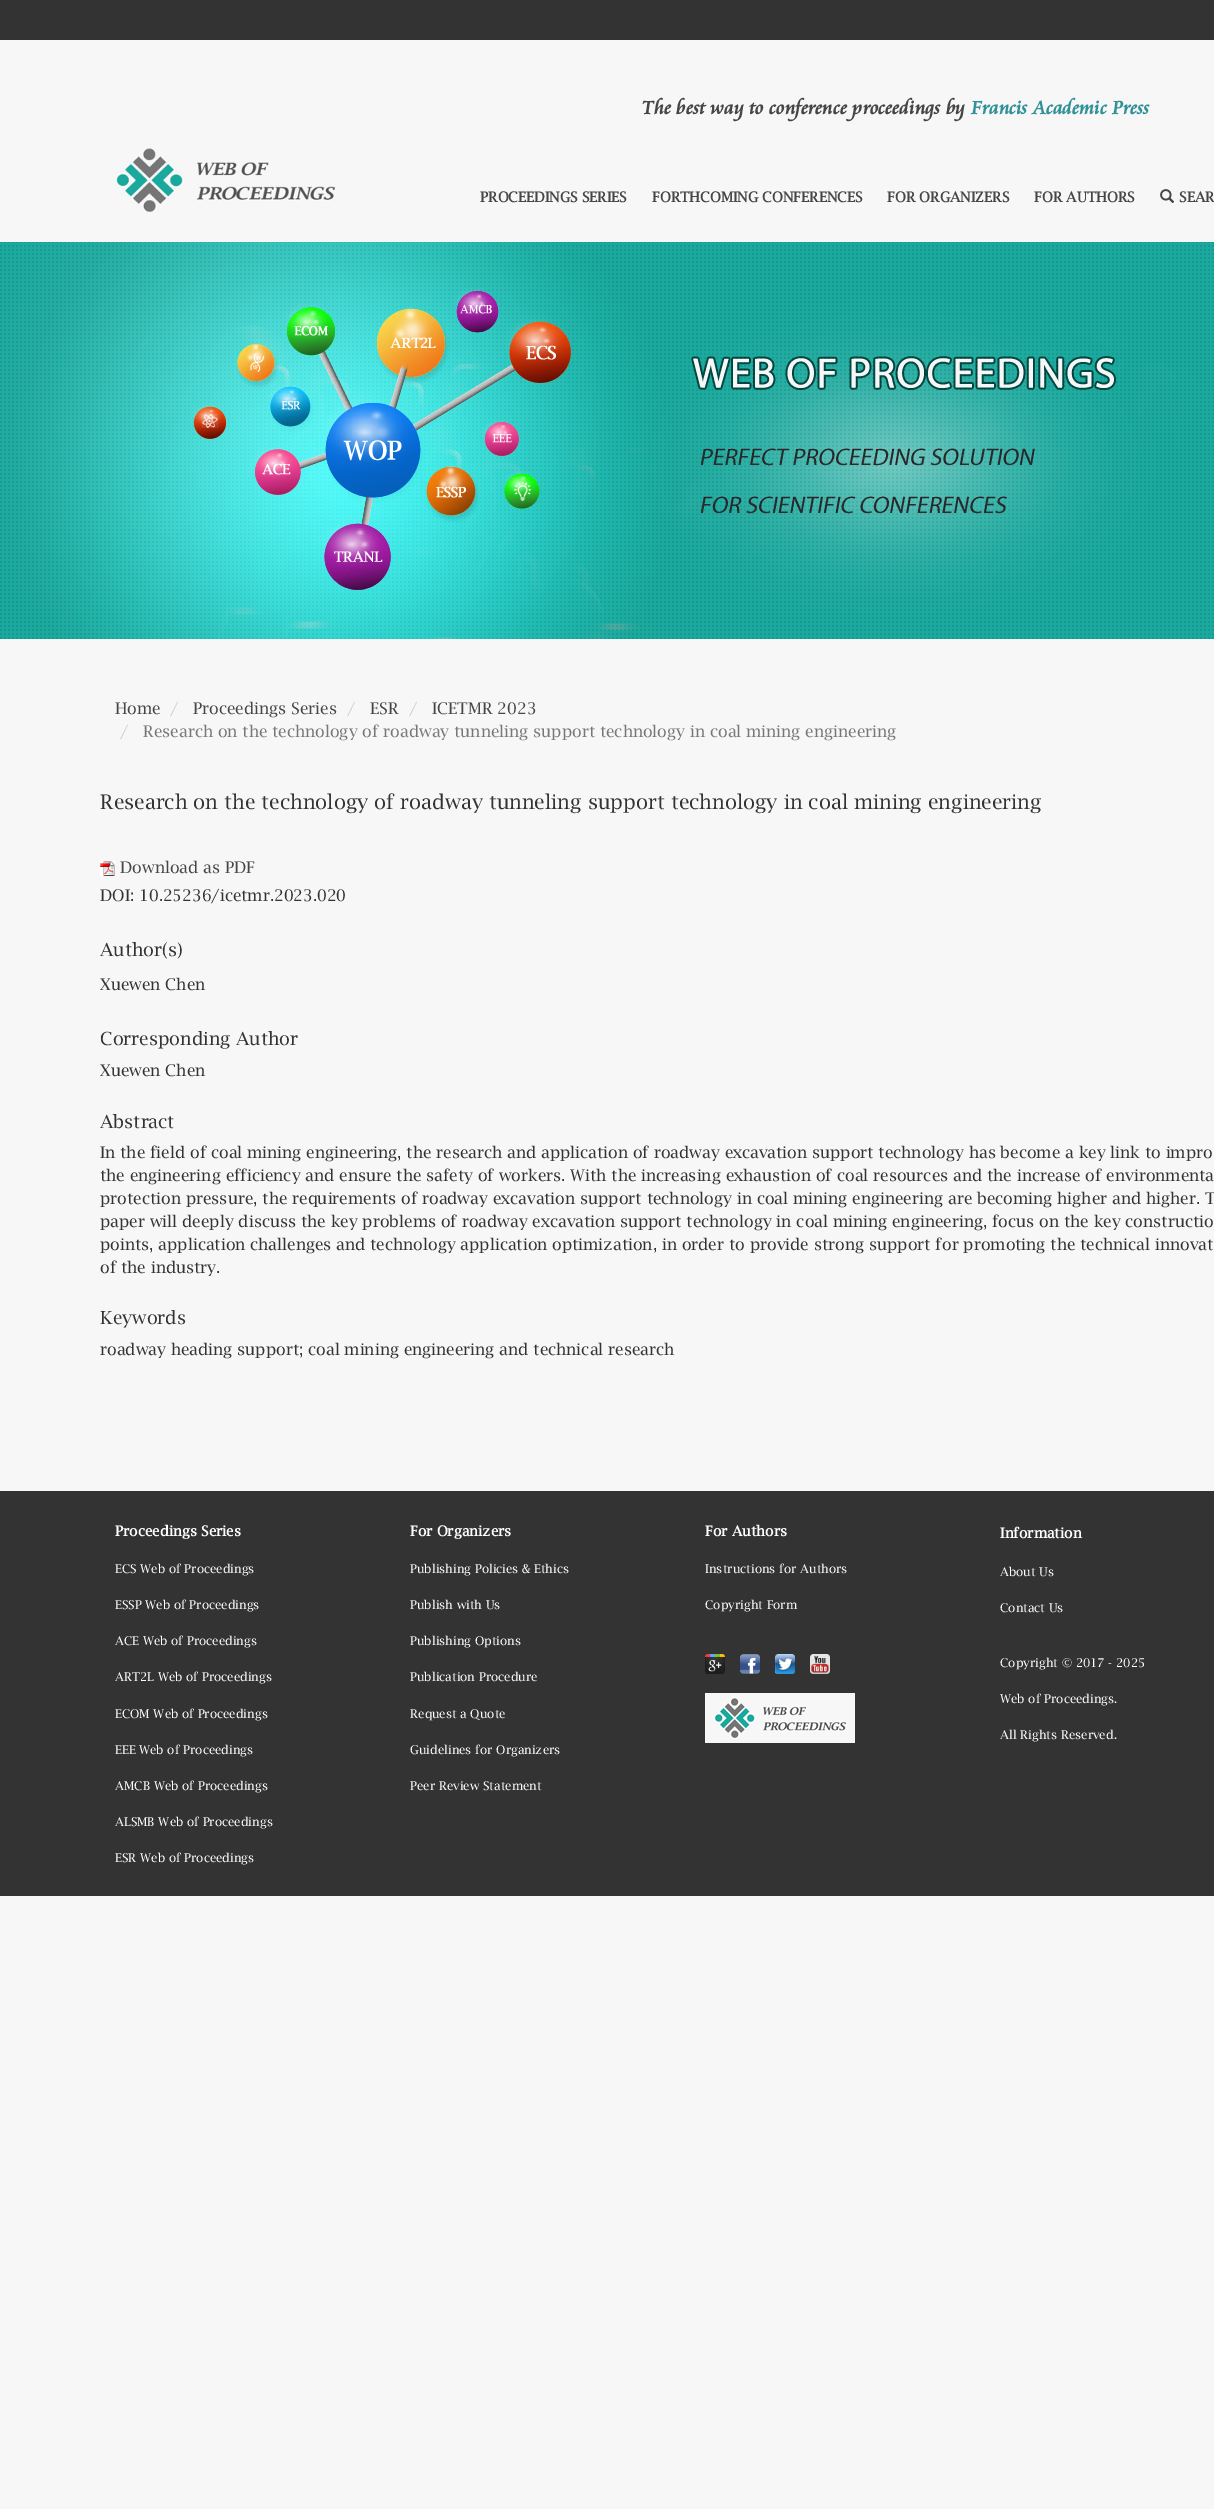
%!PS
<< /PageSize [1214 2509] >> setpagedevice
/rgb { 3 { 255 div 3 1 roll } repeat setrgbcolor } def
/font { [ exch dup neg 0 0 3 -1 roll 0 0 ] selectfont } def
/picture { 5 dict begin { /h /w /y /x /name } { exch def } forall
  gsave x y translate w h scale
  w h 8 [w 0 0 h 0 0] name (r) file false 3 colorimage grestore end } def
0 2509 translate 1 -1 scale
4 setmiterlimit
247 247 247 rgb
0 0 1214 2509 rectfill
51 51 51 rgb
0 0 1214 40 rectfill
(img/1.rgb) 116 148 220 64 picture
(img/2.rgb) 1160 189 15 14 picture
(img/3.rgb) 0 242 1214 397 picture
(img/4.rgb) 100 861 15 15 picture
0 1491 1214 405 rectfill
(img/5.rgb) 705 1654 20 20 picture
(img/6.rgb) 740 1654 20 20 picture
(img/7.rgb) 775 1654 20 20 picture
(img/8.rgb) 810 1654 20 20 picture
(img/9.rgb) 705 1693 150 50 picture
/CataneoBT-Bold 20 font
70 70 70 rgb
642 114 moveto (The best way to conference proceedings by) show
48 146 152 rgb
971 114 moveto (Francis Academic Press) show
/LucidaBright-Bold 14 font
70 70 70 rgb
[
  [(PROCEEDINGS SERIES) 480 202]
  [(FORTHCOMING CONFERENCES) 652 202]
  [(FOR ORGANIZERS) 887 202]
  [(FOR AUTHORS) 1034 202]
  [(SEAR) 1179 202]
] { aload pop moveto show } forall
/LucidaBright-Regular 16 font
115 714 moveto (Home) show
204 204 204 rgb
170 714 moveto (/) show
70 70 70 rgb
193 714 moveto (Proceedings Series) show
204 204 204 rgb
347 714 moveto (/) show
70 70 70 rgb
370 714 moveto (ESR) show
204 204 204 rgb
409 714 moveto (/) show
70 70 70 rgb
432 714 moveto (ICETMR 2023) show
204 204 204 rgb
120 737 moveto (/) show
119 119 119 rgb
143 737 moveto (Research on the technology of roadway tunneling support technology in coal mining engineering) show
/LucidaBright-Regular 20 font
51 51 51 rgb
100 809 moveto (Research on the technology of roadway tunneling support technology in coal mining engineering) show
/LucidaBright-Regular 16 font
70 70 70 rgb
120 873 moveto (Download as PDF) show
51 51 51 rgb
100 901 moveto (DOI: 10.25236/icetmr.2023.020) show
/LucidaBright-Regular 18 font
100 956 moveto (Author\(s\)) show
/LucidaBright-Regular 16 font
100 990 moveto (Xuewen Chen) show
/LucidaBright-Regular 18 font
100 1045 moveto (Corresponding Author) show
/LucidaBright-Regular 16 font
100 1076 moveto (Xuewen Chen) show
/LucidaBright-Regular 18 font
100 1128 moveto (Abstract) show
/LucidaBright-Regular 16 font
[
  [(In the field of coal mining engineering, the research and application of roadway excavation support technology has become a key link to impro) 100 1158]
  [(the engineering efficiency and ensure the safety of workers. With the increasing exhaustion of coal resources and the increase of environmenta) 100 1181]
  [(protection pressure, the requirements of roadway excavation support technology in coal mining engineering are becoming higher and higher. T) 100 1204]
  [(paper will deeply discuss the key problems of roadway excavation support technology in coal mining engineering, focus on the key constructio) 100 1227]
  [(points, application challenges and technology application optimization, in order to provide strong support for promoting the technical innovat) 100 1250]
  [(of the industry.) 100 1273]
] { aload pop moveto show } forall
/LucidaBright-Regular 18 font
100 1324 moveto (Keywords) show
/LucidaBright-Regular 16 font
100 1355 moveto (roadway heading support; coal mining engineering and technical research) show
/LucidaBright-Bold 14 font
255 255 255 rgb
115 1536 moveto (Proceedings Series) show
/LucidaBright-Regular 12 font
[
  [(ECS Web of Proceedings) 115 1573]
  [(ESSP Web of Proceedings) 115 1609]
  [(ACE Web of Proceedings) 115 1645]
  [(ART2L Web of Proceedings) 115 1681]
  [(ECOM Web of Proceedings) 115 1718]
  [(EEE Web of Proceedings) 115 1754]
  [(AMCB Web of Proceedings) 115 1790]
  [(ALSMB Web of Proceedings) 115 1826]
  [(ESR Web of Proceedings) 115 1862]
] { aload pop moveto show } forall
/LucidaBright-Bold 14 font
410 1536 moveto (For Organizers) show
/LucidaBright-Regular 12 font
[
  [(Publishing Policies & Ethics) 410 1573]
  [(Publish with Us) 410 1609]
  [(Publishing Options) 410 1645]
  [(Publication Procedure) 410 1681]
  [(Request a Quote) 410 1718]
  [(Guidelines for Organizers) 410 1754]
  [(Peer Review Statement) 410 1790]
] { aload pop moveto show } forall
/LucidaBright-Bold 14 font
705 1536 moveto (For Authors) show
/LucidaBright-Regular 12 font
705 1573 moveto (Instructions for Authors) show
705 1609 moveto (Copyright Form) show
/LucidaBright-Bold 14 font
1000 1538 moveto (Information) show
/LucidaBright-Regular 12 font
[
  [(About Us) 1000 1576]
  [(Contact Us) 1000 1612]
  [(Copyright © 2017 - 2025) 1000 1667]
  [(Web of Proceedings.) 1000 1703]
  [(All Rights Reserved.) 1000 1739]
] { aload pop moveto show } forall
showpage
